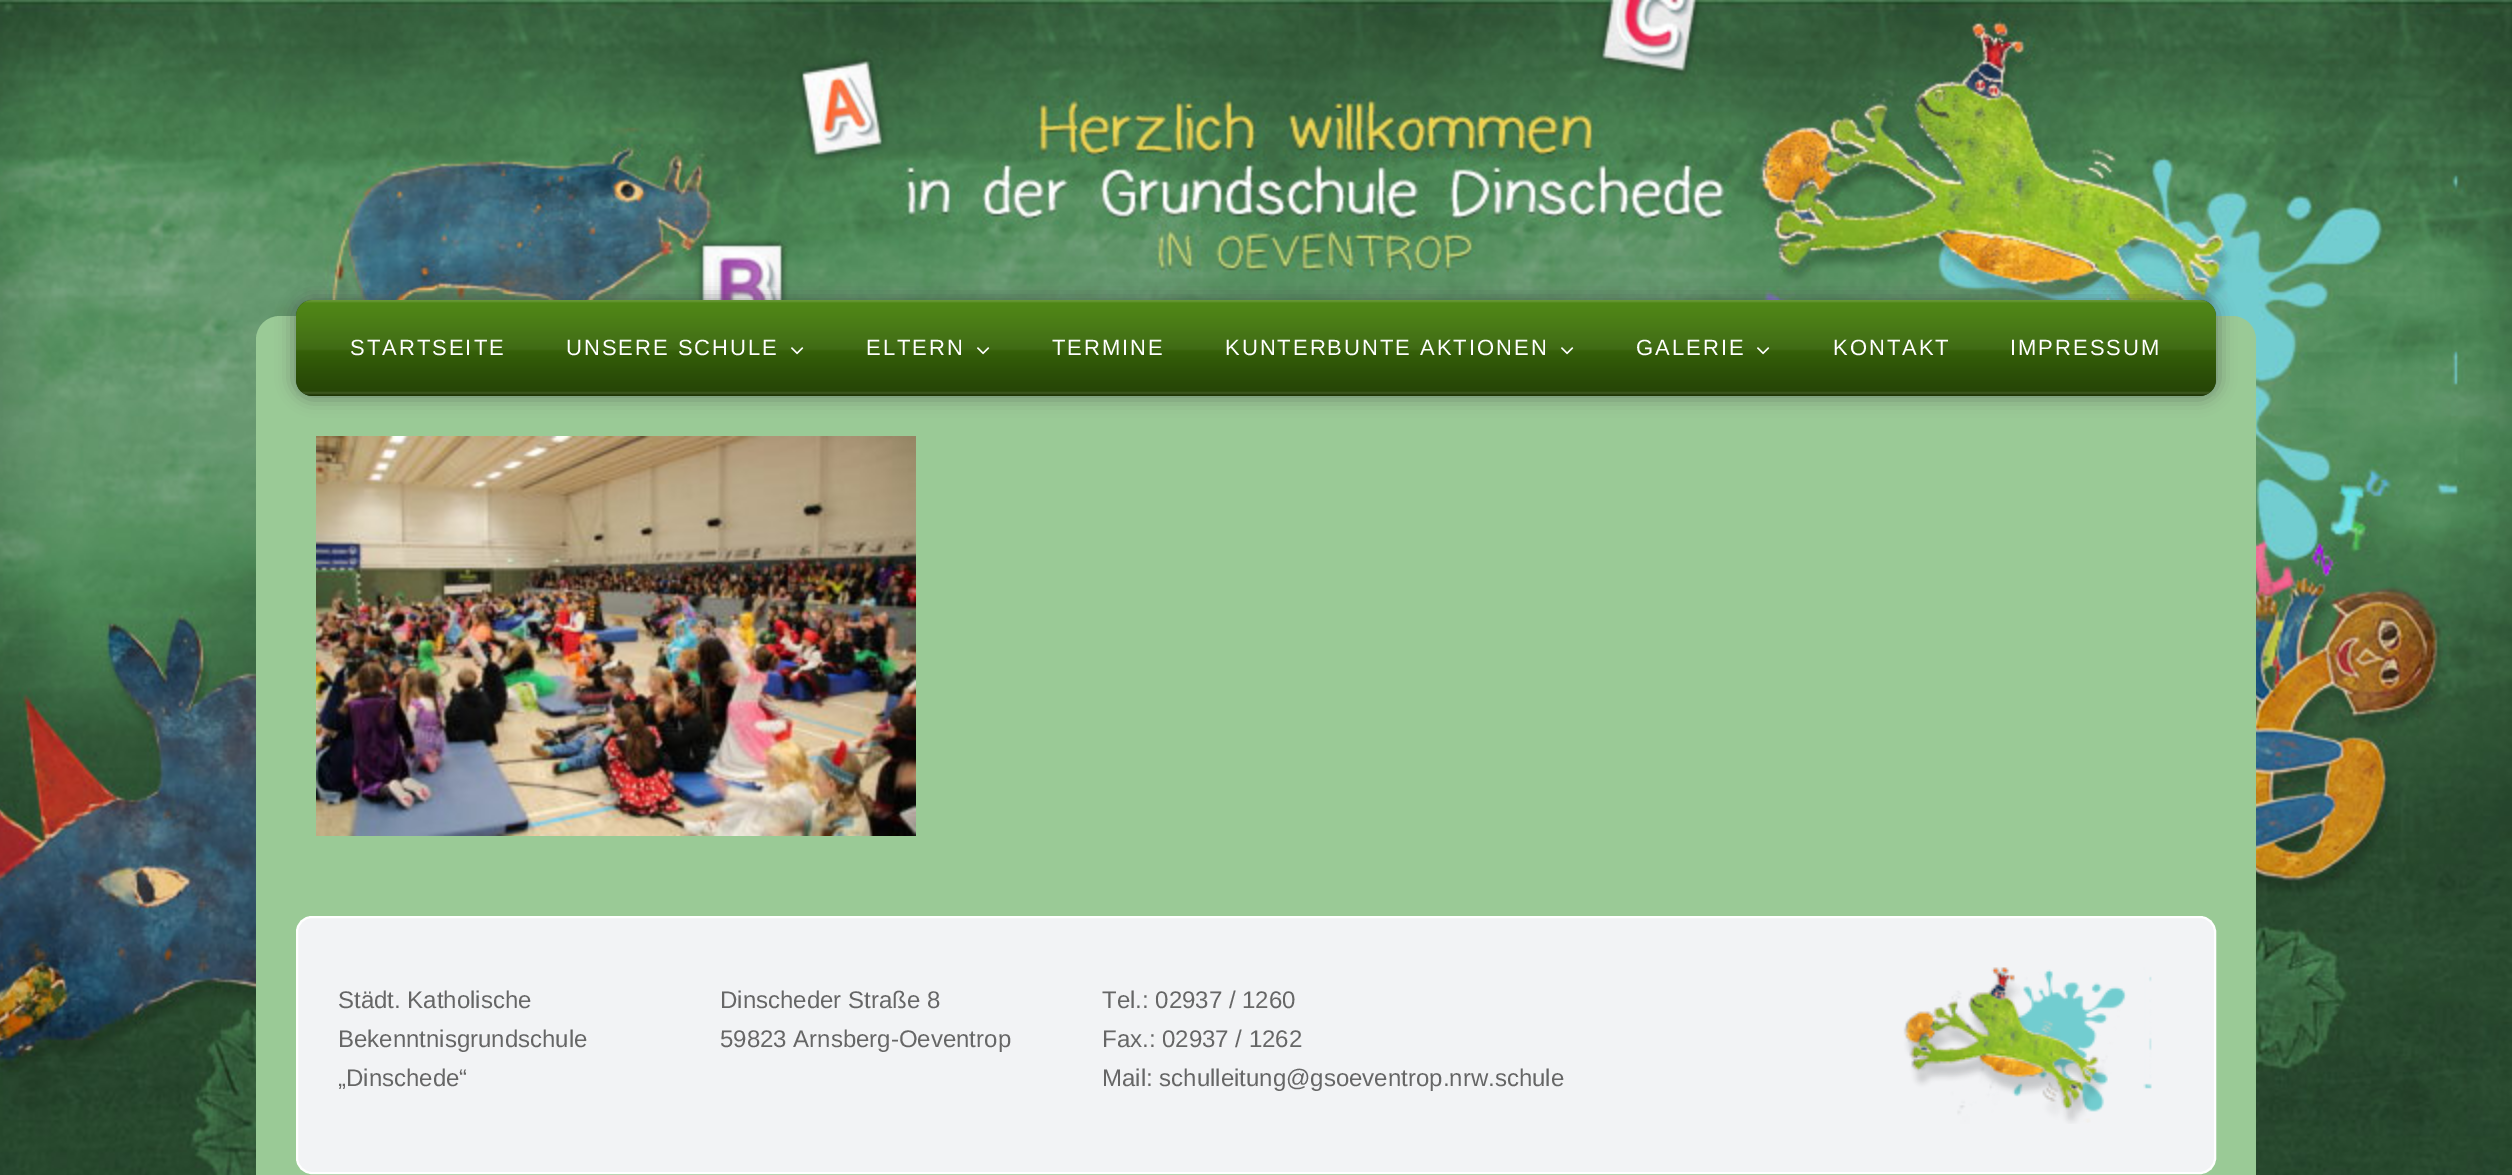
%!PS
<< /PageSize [2512 1175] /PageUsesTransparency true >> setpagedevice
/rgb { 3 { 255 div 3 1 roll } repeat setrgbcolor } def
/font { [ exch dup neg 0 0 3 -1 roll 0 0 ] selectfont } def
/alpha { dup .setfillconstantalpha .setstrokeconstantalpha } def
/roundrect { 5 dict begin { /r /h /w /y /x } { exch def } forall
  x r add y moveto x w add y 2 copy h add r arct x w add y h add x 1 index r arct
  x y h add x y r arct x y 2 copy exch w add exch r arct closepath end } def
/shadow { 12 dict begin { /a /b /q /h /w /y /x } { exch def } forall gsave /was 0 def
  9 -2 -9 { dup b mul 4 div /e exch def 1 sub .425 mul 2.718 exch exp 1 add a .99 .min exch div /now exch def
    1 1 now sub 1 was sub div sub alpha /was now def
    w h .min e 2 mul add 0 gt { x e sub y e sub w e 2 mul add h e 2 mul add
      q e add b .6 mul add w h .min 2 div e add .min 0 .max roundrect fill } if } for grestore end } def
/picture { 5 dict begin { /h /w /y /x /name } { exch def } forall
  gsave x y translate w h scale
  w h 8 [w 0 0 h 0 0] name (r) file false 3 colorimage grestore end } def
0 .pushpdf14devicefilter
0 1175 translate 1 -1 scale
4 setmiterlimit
255 255 255 rgb
0 0 2512 1175 rectfill
(img/1.rgb) 0 0 2512 1175 picture
154 202 150 rgb
280 316 moveto 2232 316 lineto 2245.5 316 2256 326.5 2256 340 curveto 2256 916 lineto 256 916 lineto 256 340 lineto 256 326.5 266.5 316 280 316 curveto closepath fill
(img/2.rgb) 316 436 600 400 picture
67 69 73 rgb
292 296 1928 104 20 8 0.43 shadow
36 66 42 rgb
296 300 1920 96 16 roundrect fill
(img/3.rgb) 296 300 1920 96 picture
(img/4.rgb) 791 347 13 8 picture
(img/4.rgb) 977 347 13 8 picture
(img/4.rgb) 1561 347 13 8 picture
(img/4.rgb) 1757 347 13 8 picture
154 202 150 rgb
256 916 2000 259 rectfill
242 243 245 rgb
297 917 1918 256 15 roundrect gsave fill grestore
255 255 255 rgb
2 setlinewidth
stroke
(img/5.rgb) 1903 967 249 157 picture
/LiberationSans-Regular 22 font
350 355 moveto 2 0 (STARTSEITE) ashow
566 355 moveto 2 0 (UNSERE SCHULE) ashow
866 355 moveto 2 0 (ELTERN) ashow
1052 355 moveto 2 0 (TERMINE) ashow
1225 355 moveto 2 0 (KUNTERBUNTE AKTIONEN) ashow
1636 355 moveto 2 0 (GALERIE) ashow
1833 355 moveto 2 0 (KONTAKT) ashow
2010 355 moveto 2 0 (IMPRESSUM) ashow
/LiberationSans-Regular 24 font
102 102 102 rgb
[
  [(Städt. Katholische) 338 1008]
  [(Bekenntnisgrundschule) 338 1047]
  [(„Dinschede“) 338 1086]
  [(Dinscheder Straße 8) 720 1008]
  [(59823 Arnsberg-Oeventrop) 720 1047]
  [(Tel.: 02937 / 1260) 1102 1008]
  [(Fax.: 02937 / 1262) 1102 1047]
  [(Mail: schulleitung@gsoeventrop.nrw.schule) 1102 1086]
] { aload pop moveto show } forall
.poppdf14devicefilter showpage
